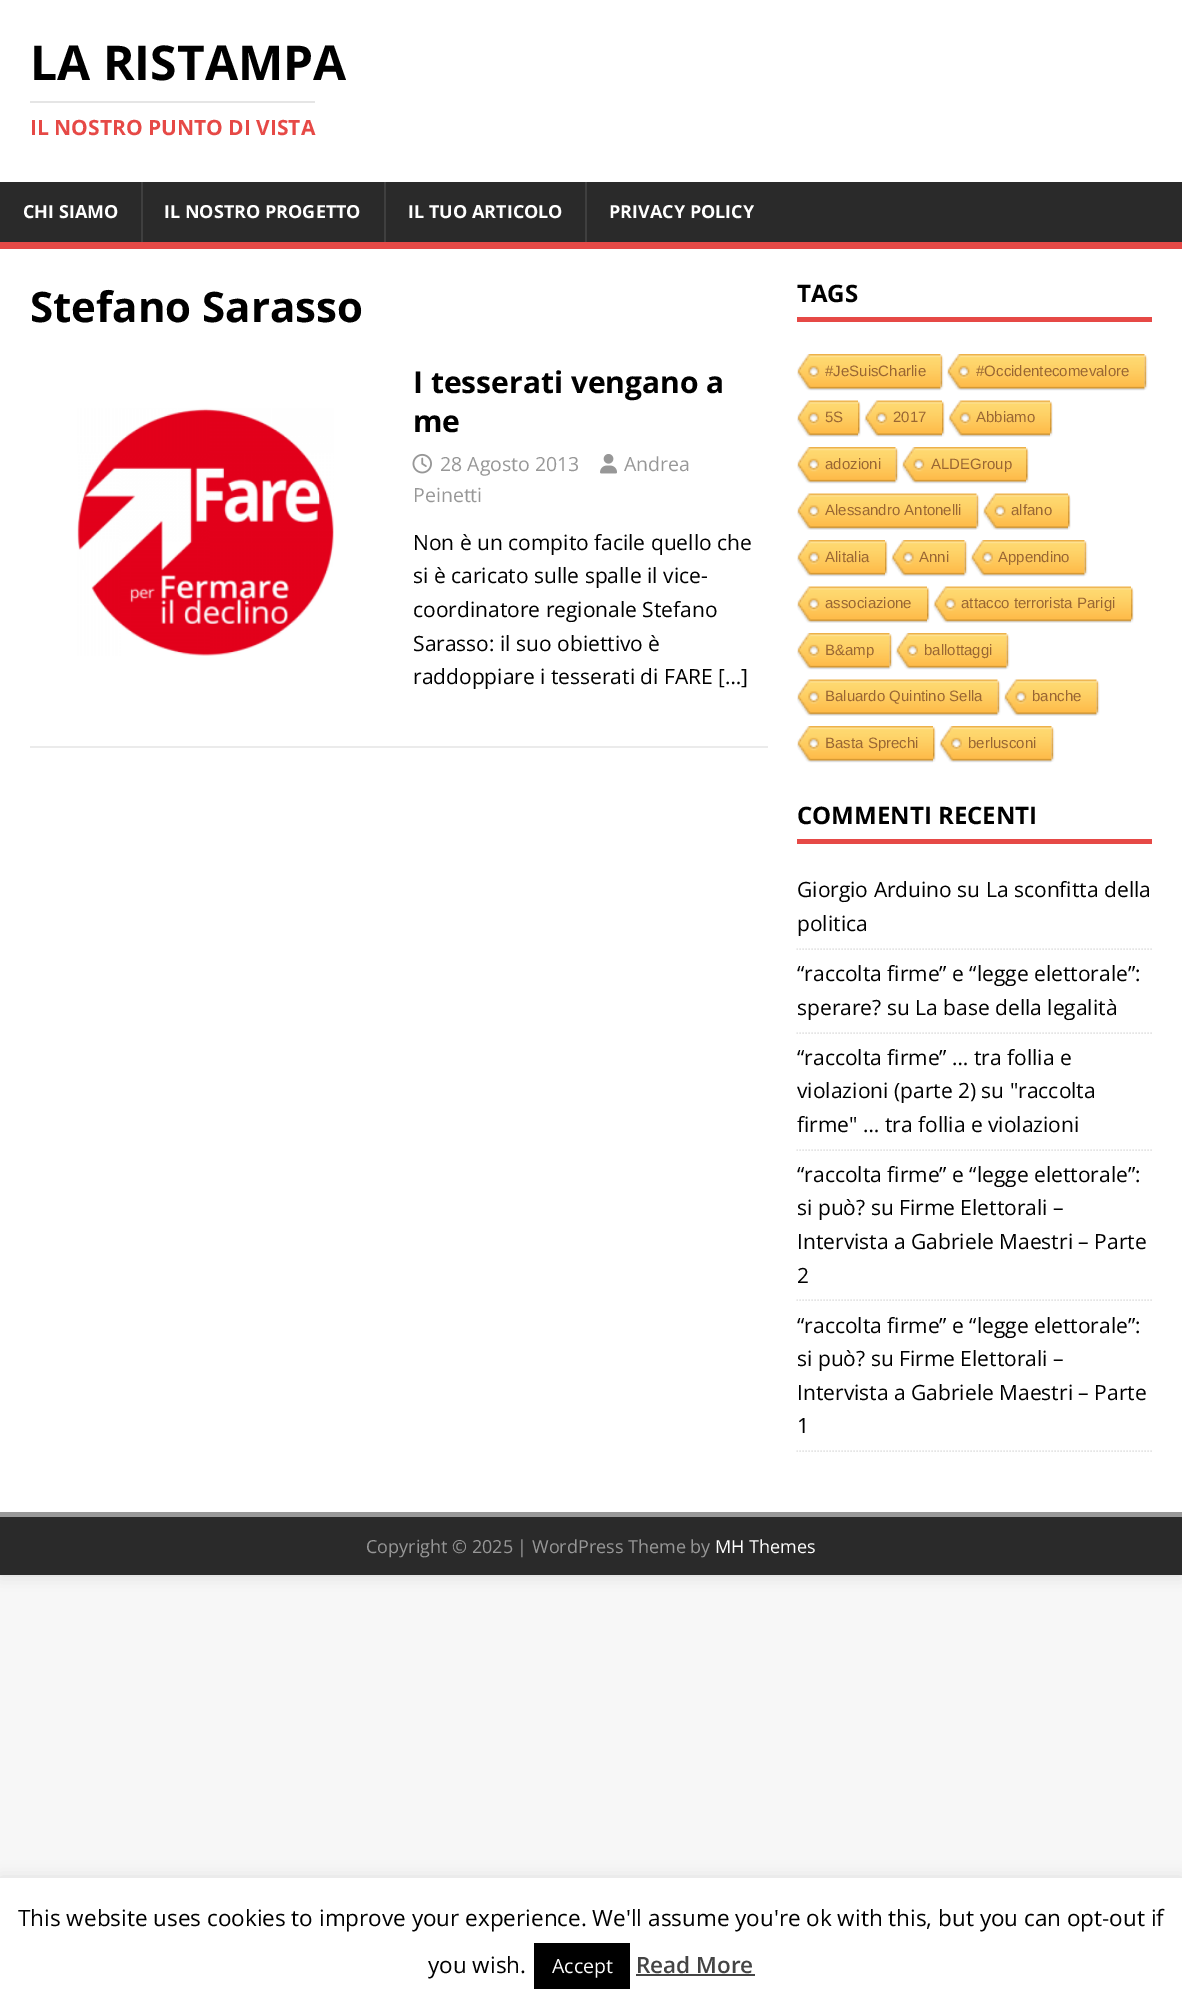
%!PS
<< /PageSize [1182 2007] /PageUsesTransparency true >> setpagedevice
/rgb { 3 { 255 div 3 1 roll } repeat setrgbcolor } def
/font { [ exch dup neg 0 0 3 -1 roll 0 0 ] selectfont } def
/alpha { dup .setfillconstantalpha .setstrokeconstantalpha } def
/roundrect { 5 dict begin { /r /h /w /y /x } { exch def } forall
  x r add y moveto x w add y 2 copy h add r arct x w add y h add x 1 index r arct
  x y h add x y r arct x y 2 copy exch w add exch r arct closepath end } def
/shadow { 12 dict begin { /a /b /q /h /w /y /x } { exch def } forall gsave /was 0 def
  9 -2 -9 { dup b mul 4 div /e exch def 1 sub .425 mul 2.718 exch exp 1 add a .99 .min exch div /now exch def
    1 1 now sub 1 was sub div sub alpha /was now def
    w h .min e 2 mul add 0 gt { x e sub y e sub w e 2 mul add h e 2 mul add
      q e add b .6 mul add w h .min 2 div e add .min 0 .max roundrect fill } if } for grestore end } def
/picture { 5 dict begin { /h /w /y /x /name } { exch def } forall
  gsave x y translate w h scale
  w h 8 [w 0 0 h 0 0] name (r) file false 3 colorimage grestore end } def
0 .pushpdf14devicefilter
0 2007 translate 1 -1 scale
4 setmiterlimit
247 247 247 rgb
0 0 1182 2007 rectfill
50 50 50 rgb
0 0 1182 1575 0 7.5 0.17 shadow
[
  [0 0 1182 182 255 255 255]
  [30 101 285 2 229 229 229]
  [0 182 1182 60 42 42 42]
  [0 242 1182 7 230 73 70]
  [141 182 2 60 63 63 63]
  [384 182 2 60 63 63 63]
  [585 182 2 60 63 63 63]
  [0 249 1182 1263 255 255 255]
  [30 746 738 2 235 235 235]
] { aload pop rgb rectfill } forall
(img/1.rgb) 77 408 257 248 picture
(img/2.rgb) 600 454 17 20 picture
(img/3.rgb) 412 453 20 21 picture
230 73 70 rgb
797 317 355 5 rectfill
(img/4.rgb) 797 354 144 37 picture
(img/5.rgb) 940 355 4 35 picture
(img/6.rgb) 947 354 198 37 picture
(img/5.rgb) 1144 355 4 35 picture
(img/7.rgb) 797 400 61 37 picture
(img/8.rgb) 858 401 3 36 picture
(img/9.rgb) 864 400 78 37 picture
(img/8.rgb) 942 401 3 36 picture
(img/10.rgb) 948 400 102 37 picture
(img/11.rgb) 1050 401 3 36 picture
(img/12.rgb) 797 447 99 37 picture
(img/5.rgb) 895 448 4 35 picture
(img/13.rgb) 902 447 124 37 picture
(img/14.rgb) 1026 447 3 36 picture
(img/15.rgb) 797 493 180 37 picture
(img/16.rgb) 976 494 4 35 picture
(img/17.rgb) 983 493 85 37 picture
(img/11.rgb) 1068 494 3 36 picture
(img/18.rgb) 797 540 88 37 picture
(img/19.rgb) 885 540 3 36 picture
(img/20.rgb) 891 540 74 37 picture
(img/5.rgb) 964 541 4 35 picture
(img/21.rgb) 970 540 115 37 picture
(img/5.rgb) 1084 541 4 35 picture
(img/22.rgb) 797 586 130 37 picture
(img/8.rgb) 927 587 3 36 picture
(img/23.rgb) 933 586 198 37 picture
(img/11.rgb) 1131 587 3 36 picture
(img/24.rgb) 797 633 93 37 picture
(img/5.rgb) 889 634 4 35 picture
(img/25.rgb) 895 633 112 37 picture
(img/5.rgb) 1006 634 4 35 picture
(img/26.rgb) 797 679 201 37 picture
(img/16.rgb) 997 680 4 35 picture
(img/27.rgb) 1004 679 93 37 picture
(img/16.rgb) 1096 680 4 35 picture
(img/28.rgb) 797 726 136 37 picture
(img/19.rgb) 933 726 3 36 picture
(img/29.rgb) 939 726 113 37 picture
(img/5.rgb) 1051 727 4 35 picture
797 839 355 5 rectfill
229 229 229 rgb
1.5 setlinewidth
[1.5 1.5] 0 setdash
796.5 949 moveto 1152 949 lineto stroke
796.5 1033 moveto 1152 1033 lineto stroke
796.5 1150 moveto 1152 1150 lineto stroke
796.5 1300 moveto 1152 1300 lineto stroke
796.5 1451 moveto 1152 1451 lineto stroke
42 42 42 rgb
0 1517 1182 58 rectfill
153 153 153 rgb
0 1512 1182 5 rectfill
172 171 171 rgb
0 1877 1182 129 0 7.5 0.3 shadow
[
  [0 1878 1182 129 255 255 255]
  [534 1943 96 46 0 0 0]
  [636 1974 119 2 68 68 68]
] { aload pop rgb rectfill } forall
/OpenSans-Bold 48 font
0 0 0 rgb
30 80 moveto (LA RISTAMPA) show
/OpenSans-Bold 21 font
230 73 70 rgb
30 135 moveto (IL NOSTRO PUNTO DI VISTA) show
/OpenSans-Bold 18 font
255 255 255 rgb
[
  [(CHI SIAMO) 23 218]
  [(IL NOSTRO PROGETTO) 164 218]
  [(IL TUO ARTICOLO) 408 218]
  [(PRIVACY POLICY) 609 218]
] { aload pop moveto show } forall
/OpenSans-Bold 42 font
0 0 0 rgb
30 322 moveto (Stefano Sarasso) show
/OpenSans-Bold 30 font
413 393 moveto (I tesserati vengano a) show
413 432 moveto (me) show
/OpenSans-Regular 19.5 font
151 151 151 rgb
[
  [(Andrea) 624 471]
  [(Peinetti) 413 502]
  [(28 Agosto 2013) 440 471]
] { aload pop moveto show } forall
/OpenSans-Regular 21 font
0 0 0 rgb
[
  [(Non è un compito facile quello che) 413 550]
  [(si è caricato sulle spalle il vice-) 413 583]
  [(coordinatore regionale Stefano) 413 617]
  [(Sarasso: il suo obiettivo è) 413 651]
  [(raddoppiare i tesserati di FARE […]) 413 684]
] { aload pop moveto show } forall
/OpenSans-Bold 24 font
797 302 moveto (TAGS) show
/LiberationSans-Regular 15 font
153 102 51 rgb
[
  [(#JeSuisCharlie) 825 376]
  [(#Occidentecomevalore) 976 376]
  [(5S) 825 422]
  [(2017) 893 422]
  [(Abbiamo) 976 422]
  [(adozioni) 825 469]
  [(ALDEGroup) 931 469]
  [(Alessandro Antonelli) 825 515]
  [(alfano) 1011 515]
  [(Alitalia) 825 562]
  [(Anni) 919 562]
  [(Appendino) 998 562]
  [(associazione) 825 608]
  [(attacco terrorista Parigi) 961 608]
  [(B&amp) 825 655]
  [(ballottaggi) 924 655]
  [(Baluardo Quintino Sella) 825 701]
  [(banche) 1032 701]
  [(Basta Sprechi) 825 748]
  [(berlusconi) 968 748]
] { aload pop moveto show } forall
/OpenSans-Bold 24 font
0 0 0 rgb
797 824 moveto (COMMENTI RECENTI) show
/OpenSans-Regular 21 font
[
  [(Giorgio Arduino su La sconfitta della) 797 897]
  [(politica) 797 931]
  [(“raccolta firme” e “legge elettorale”:) 797 981]
  [(sperare? su La base della legalità) 797 1015]
  [(“raccolta firme” … tra follia e) 797 1065]
  [(violazioni \(parte 2\) su "raccolta) 797 1098]
  [(firme" … tra follia e violazioni) 797 1132]
  [(“raccolta firme” e “legge elettorale”:) 797 1182]
  [(si può? su Firme Elettorali –) 797 1215]
  [(Intervista a Gabriele Maestri – Parte) 797 1249]
  [(2) 797 1283]
  [(“raccolta firme” e “legge elettorale”:) 797 1333]
  [(si può? su Firme Elettorali –) 797 1366]
  [(Intervista a Gabriele Maestri – Parte) 797 1400]
  [(1) 797 1433]
] { aload pop moveto show } forall
/OpenSans-Regular 18 font
151 151 151 rgb
366 1553 moveto (Copyright © 2025 | WordPress Theme by) show
255 255 255 rgb
715 1553 moveto (MH Themes) show
/OpenSans-Regular 22.5 font
0 0 0 rgb
18 1926 moveto (This website uses cookies to improve your experience. We'll assume you're ok with this, but you can opt-out if) show
428 1973 moveto (you wish.) show
/OpenSans-Regular 19.5 font
255 255 255 rgb
552 1973 moveto (Accept) show
/OpenSans-SemiBold 22.5 font
68 68 68 rgb
636 1973 moveto (Read More) show
.poppdf14devicefilter showpage
